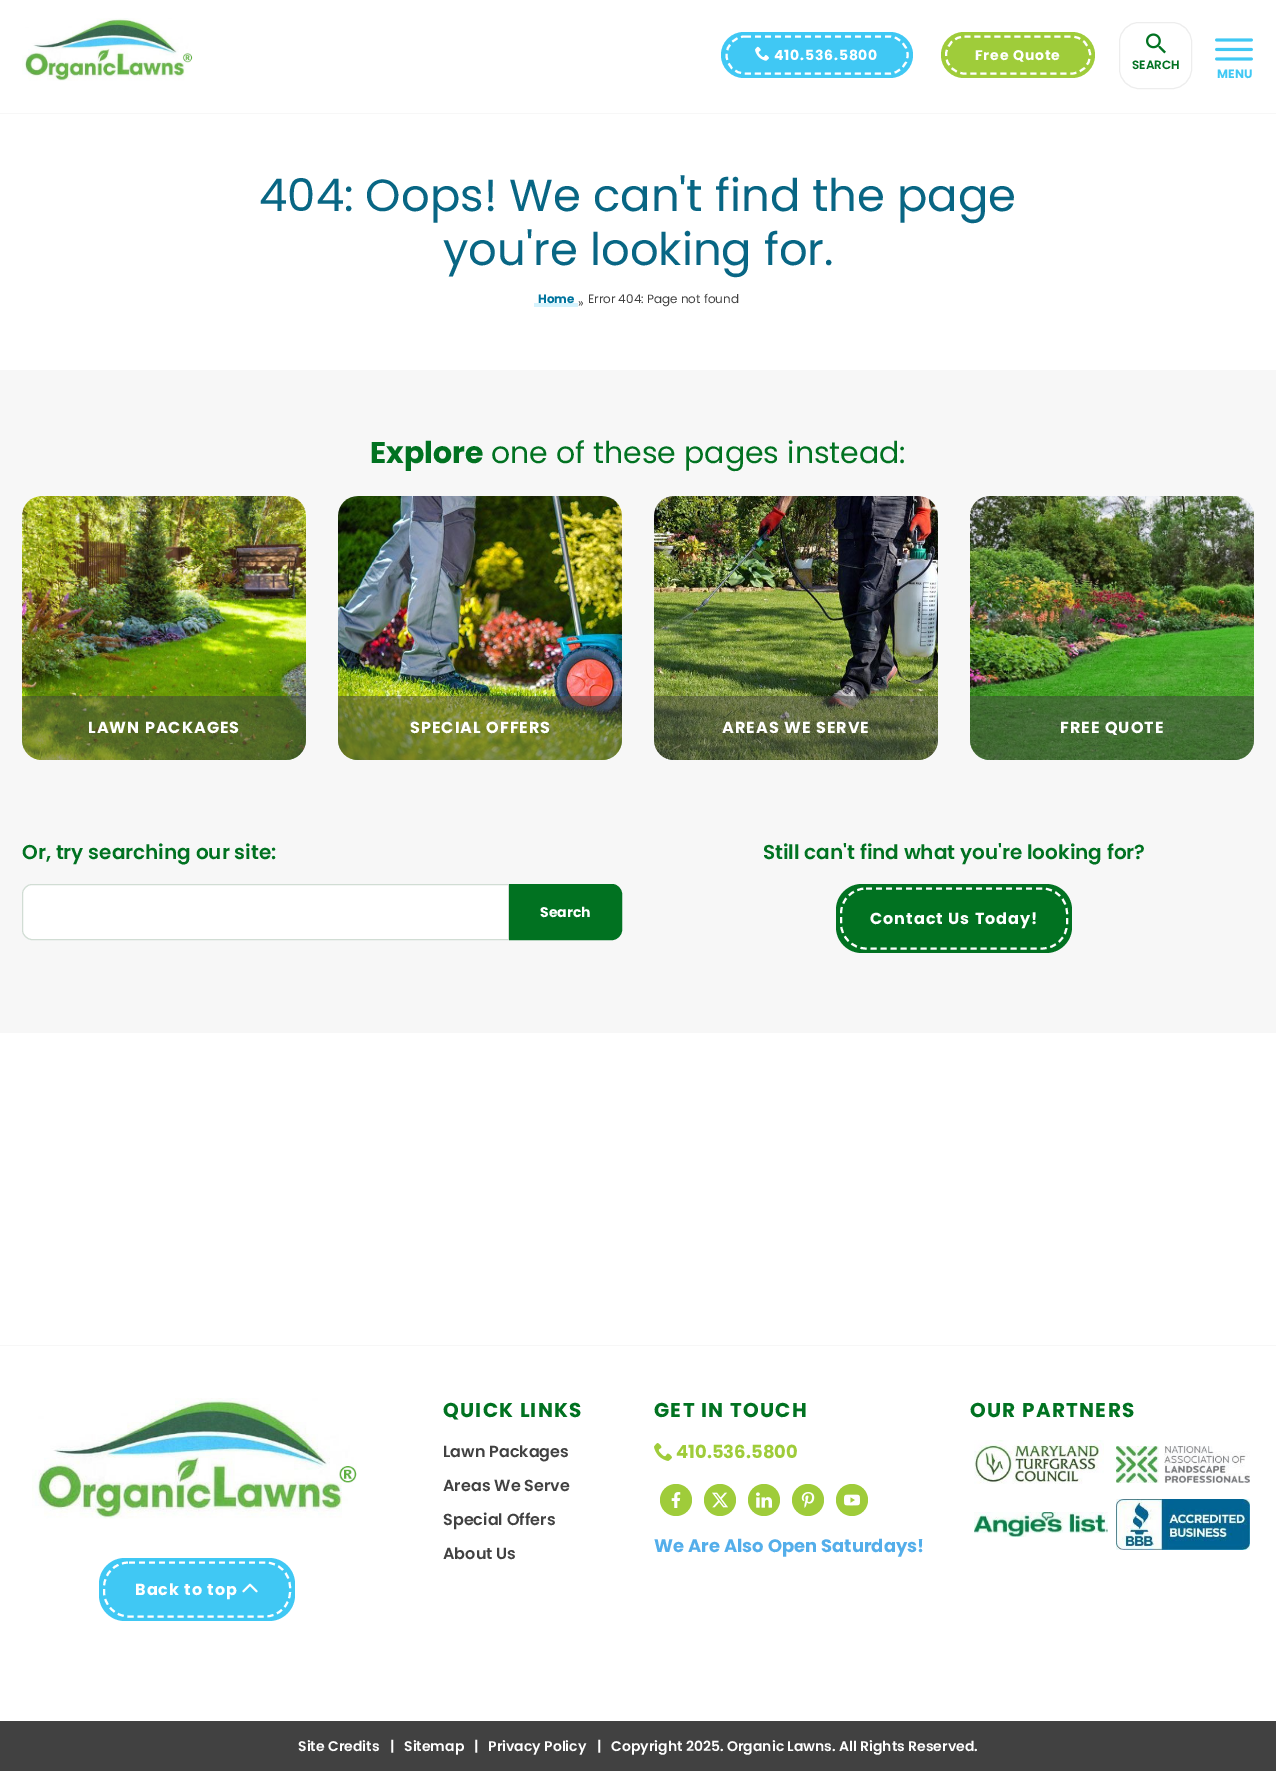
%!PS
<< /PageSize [1276 1775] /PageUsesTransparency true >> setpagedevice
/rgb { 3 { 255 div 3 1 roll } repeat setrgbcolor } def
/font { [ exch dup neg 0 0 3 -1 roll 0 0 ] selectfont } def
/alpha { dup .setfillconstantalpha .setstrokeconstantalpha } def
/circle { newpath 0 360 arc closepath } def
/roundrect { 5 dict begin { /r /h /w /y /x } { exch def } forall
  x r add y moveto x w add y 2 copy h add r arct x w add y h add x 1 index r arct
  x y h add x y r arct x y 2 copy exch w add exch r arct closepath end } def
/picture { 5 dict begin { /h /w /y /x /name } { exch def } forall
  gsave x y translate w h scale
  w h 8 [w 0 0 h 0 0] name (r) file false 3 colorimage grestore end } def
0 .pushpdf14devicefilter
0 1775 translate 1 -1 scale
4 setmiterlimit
255 255 255 rgb
0 0 1276 1775 rectfill
247 247 247 rgb
0 113 1276 1 rectfill
(img/1.rgb) 22 18 171 63 picture
64 200 244 rgb
721 32 192 46 23 roundrect fill
(img/2.rgb) 755 46 14 15 picture
255 255 255 rgb
2 setlinewidth
[6 4] 0 setdash
745 36.5 moveto 889 36.5 lineto 899 36.5 907.5 45 907.5 55 curveto 907.5 65.5 899 73.5 889 73.5 curveto 745 73.5 lineto 734.5 73.5 726.5 65.5 726.5 55 curveto 726.5 45 734.5 36.5 745 36.5 curveto closepath stroke
159 204 58 rgb
941 32 154 46 23 roundrect fill
255 255 255 rgb
964.5 36.5 moveto 1071.5 36.5 lineto 1081.5 36.5 1090 45 1090 55 curveto 1090 65.5 1081.5 73.5 1071.5 73.5 curveto 964.5 73.5 lineto 954.5 73.5 946 65.5 946 55 curveto 946 45 954.5 36.5 964.5 36.5 curveto closepath stroke
237 237 237 rgb
1 setlinewidth
[] 0 setdash
1119.5 22.5 72 66 19.5 roundrect stroke
(img/3.rgb) 1146 33 20 21 picture
(img/4.rgb) 1215 38 38 23 picture
213 243 253 rgb
534 303 44 4 rectfill
247 247 247 rgb
0 370 1276 663 rectfill
(img/5.rgb) 22 496 284 264 picture
0.5 alpha
65 65 65 rgb
22 696 moveto 306 696 lineto 306 740 lineto 306 751 297 760 286 760 curveto 42 760 lineto 31 760 22 751 22 740 curveto closepath fill
1 alpha
(img/6.rgb) 338 496 284 264 picture
0.5 alpha
338 696 moveto 622 696 lineto 622 740 lineto 622 751 613 760 602 760 curveto 358 760 lineto 347 760 338 751 338 740 curveto closepath fill
1 alpha
(img/7.rgb) 654 496 284 264 picture
0.5 alpha
654 696 moveto 938 696 lineto 938 740 lineto 938 751 929 760 918 760 curveto 674 760 lineto 663 760 654 751 654 740 curveto closepath fill
1 alpha
(img/8.rgb) 970 496 284 264 picture
0.5 alpha
970 696 moveto 1254 696 lineto 1254 740 lineto 1254 751 1245 760 1234 760 curveto 990 760 lineto 979 760 970 751 970 740 curveto closepath fill
1 alpha
255 255 255 rgb
32 884.5 moveto 508.5 884.5 lineto 508.5 939.5 lineto 32 939.5 lineto 27 939.5 22.5 935 22.5 930 curveto 22.5 894 lineto 22.5 889 27 884.5 32 884.5 curveto closepath gsave fill grestore
209 221 212 rgb
stroke
1 114 33 rgb
509.5 884.5 moveto 612 884.5 lineto 617 884.5 621.5 889 621.5 894 curveto 621.5 930 lineto 621.5 935 617 939.5 612 939.5 curveto 509.5 939.5 lineto closepath gsave fill grestore
stroke
836 884 236 69 26 roundrect fill
255 255 255 rgb
2 setlinewidth
[6 4] 0 setdash
866 888.5 moveto 1042 888.5 lineto 1056 888.5 1067 899.5 1067 913.5 curveto 1067 923.5 lineto 1067 937 1056 948.5 1042 948.5 curveto 866 948.5 lineto 852.5 948.5 841 937 841 923.5 curveto 841 913.5 lineto 841 899.5 852.5 888.5 866 888.5 curveto closepath stroke
247 247 247 rgb
0 1345 1276 1 rectfill
(img/9.rgb) 654 1443 18 18 picture
159 204 58 rgb
676 1500 16 circle fill
(img/10.rgb) 671 1492 10 16 picture
720 1500 16 circle fill
(img/11.rgb) 712 1492 16 16 picture
764 1500 16 circle fill
(img/12.rgb) 756 1492 16 16 picture
808 1500 16 circle fill
(img/13.rgb) 801 1492 14 16 picture
852 1500 16 circle fill
(img/14.rgb) 844 1494 16 12 picture
(img/15.rgb) 974 1440 130 44 picture
(img/16.rgb) 1116 1446 134 37 picture
(img/17.rgb) 974 1512 134 25 picture
(img/18.rgb) 1116 1499 134 51 picture
(img/19.rgb) 32 1398 325 121 picture
64 200 244 rgb
99 1558 196 63 26 roundrect fill
(img/20.rgb) 242 1583 16 10 picture
255 255 255 rgb
129 1562.5 moveto 265 1562.5 lineto 279 1562.5 290 1573.5 290 1587.5 curveto 290 1591.5 lineto 290 1605 279 1616.5 265 1616.5 curveto 129 1616.5 lineto 115 1616.5 104 1605 104 1591.5 curveto 104 1587.5 lineto 104 1573.5 115 1562.5 129 1562.5 curveto closepath stroke
65 65 65 rgb
0 1721 1276 50 rectfill
/Poppins-Bold 14 font
255 255 255 rgb
774 60 moveto 0.8 0 (410.536.5800) ashow
975 60 moveto 0.8 0 (Free Quote) ashow
/Poppins-SemiBold 12 font
1 114 33 rgb
1132 69 moveto (SEARCH) show
/Poppins-Bold 12 font
64 200 244 rgb
1217 78 moveto (MENU) show
/Poppins-Regular 45 font
8 102 132 rgb
259 211 moveto (404: Oops! We can't find the page) show
443 265 moveto (you're looking for.) show
/Poppins-Bold 12 font
0 116 158 rgb
538 303 moveto (Home) show
/Poppins-Regular 12 font
65 65 65 rgb
578 307 moveto (») show
588 303 moveto (Error 404: Page not found) show
/Poppins-Bold 30 font
1 114 33 rgb
370 463 moveto (Explore) show
/Poppins-Regular 30 font
491 463 moveto (one of these pages instead:) show
/Poppins-Bold 16 font
255 255 255 rgb
88 733 moveto 1 0 (LAWN PACKAGES) ashow
410 733 moveto 1 0 (SPECIAL OFFERS) ashow
722 733 moveto 1 0 (AREAS WE SERVE) ashow
1060 733 moveto 1 0 (FREE QUOTE) ashow
/Poppins-SemiBold 20 font
1 114 33 rgb
22 859 moveto (Or, try searching our site:) show
/Poppins-Bold 14 font
255 255 255 rgb
540 917 moveto (Search) show
/Poppins-SemiBold 20 font
1 114 33 rgb
763 859 moveto (Still can't find what you're looking for?) show
/Poppins-Bold 16 font
255 255 255 rgb
870 924 moveto 1 0 (Contact Us Today!) ashow
/Poppins-Bold 20 font
1 114 33 rgb
443 1417 moveto 1.25 0 (QUICK LINKS) ashow
/Poppins-SemiBold 16 font
65 65 65 rgb
[
  [(Lawn Packages) 443 1457]
  [(Areas We Serve) 443 1491]
  [(Special Offers) 443 1525]
  [(About Us) 443 1559]
] { aload pop moveto show } forall
/Poppins-Bold 20 font
1 114 33 rgb
654 1417 moveto 1.25 0 (GET IN TOUCH) ashow
/Poppins-Bold 18 font
159 204 58 rgb
676 1458 moveto (410.536.5800) show
84 174 234 rgb
654 1552 moveto (We Are Also Open Saturdays!) show
/Poppins-Bold 20 font
1 114 33 rgb
970 1417 moveto 1.25 0 (OUR PARTNERS) ashow
/Poppins-Bold 16 font
255 255 255 rgb
135 1595 moveto 1 0 (Back to top) ashow
/Poppins-SemiBold 14 font
[
  [(Site Credits) 298 1751]
  [(|) 390 1751]
  [(Sitemap) 404 1751]
  [(|) 474 1751]
  [(Privacy Policy) 488 1751]
  [(|) 597 1751]
  [(Copyright 2025. Organic Lawns. All Rights Reserved.) 611 1751]
] { aload pop moveto show } forall
.poppdf14devicefilter showpage
